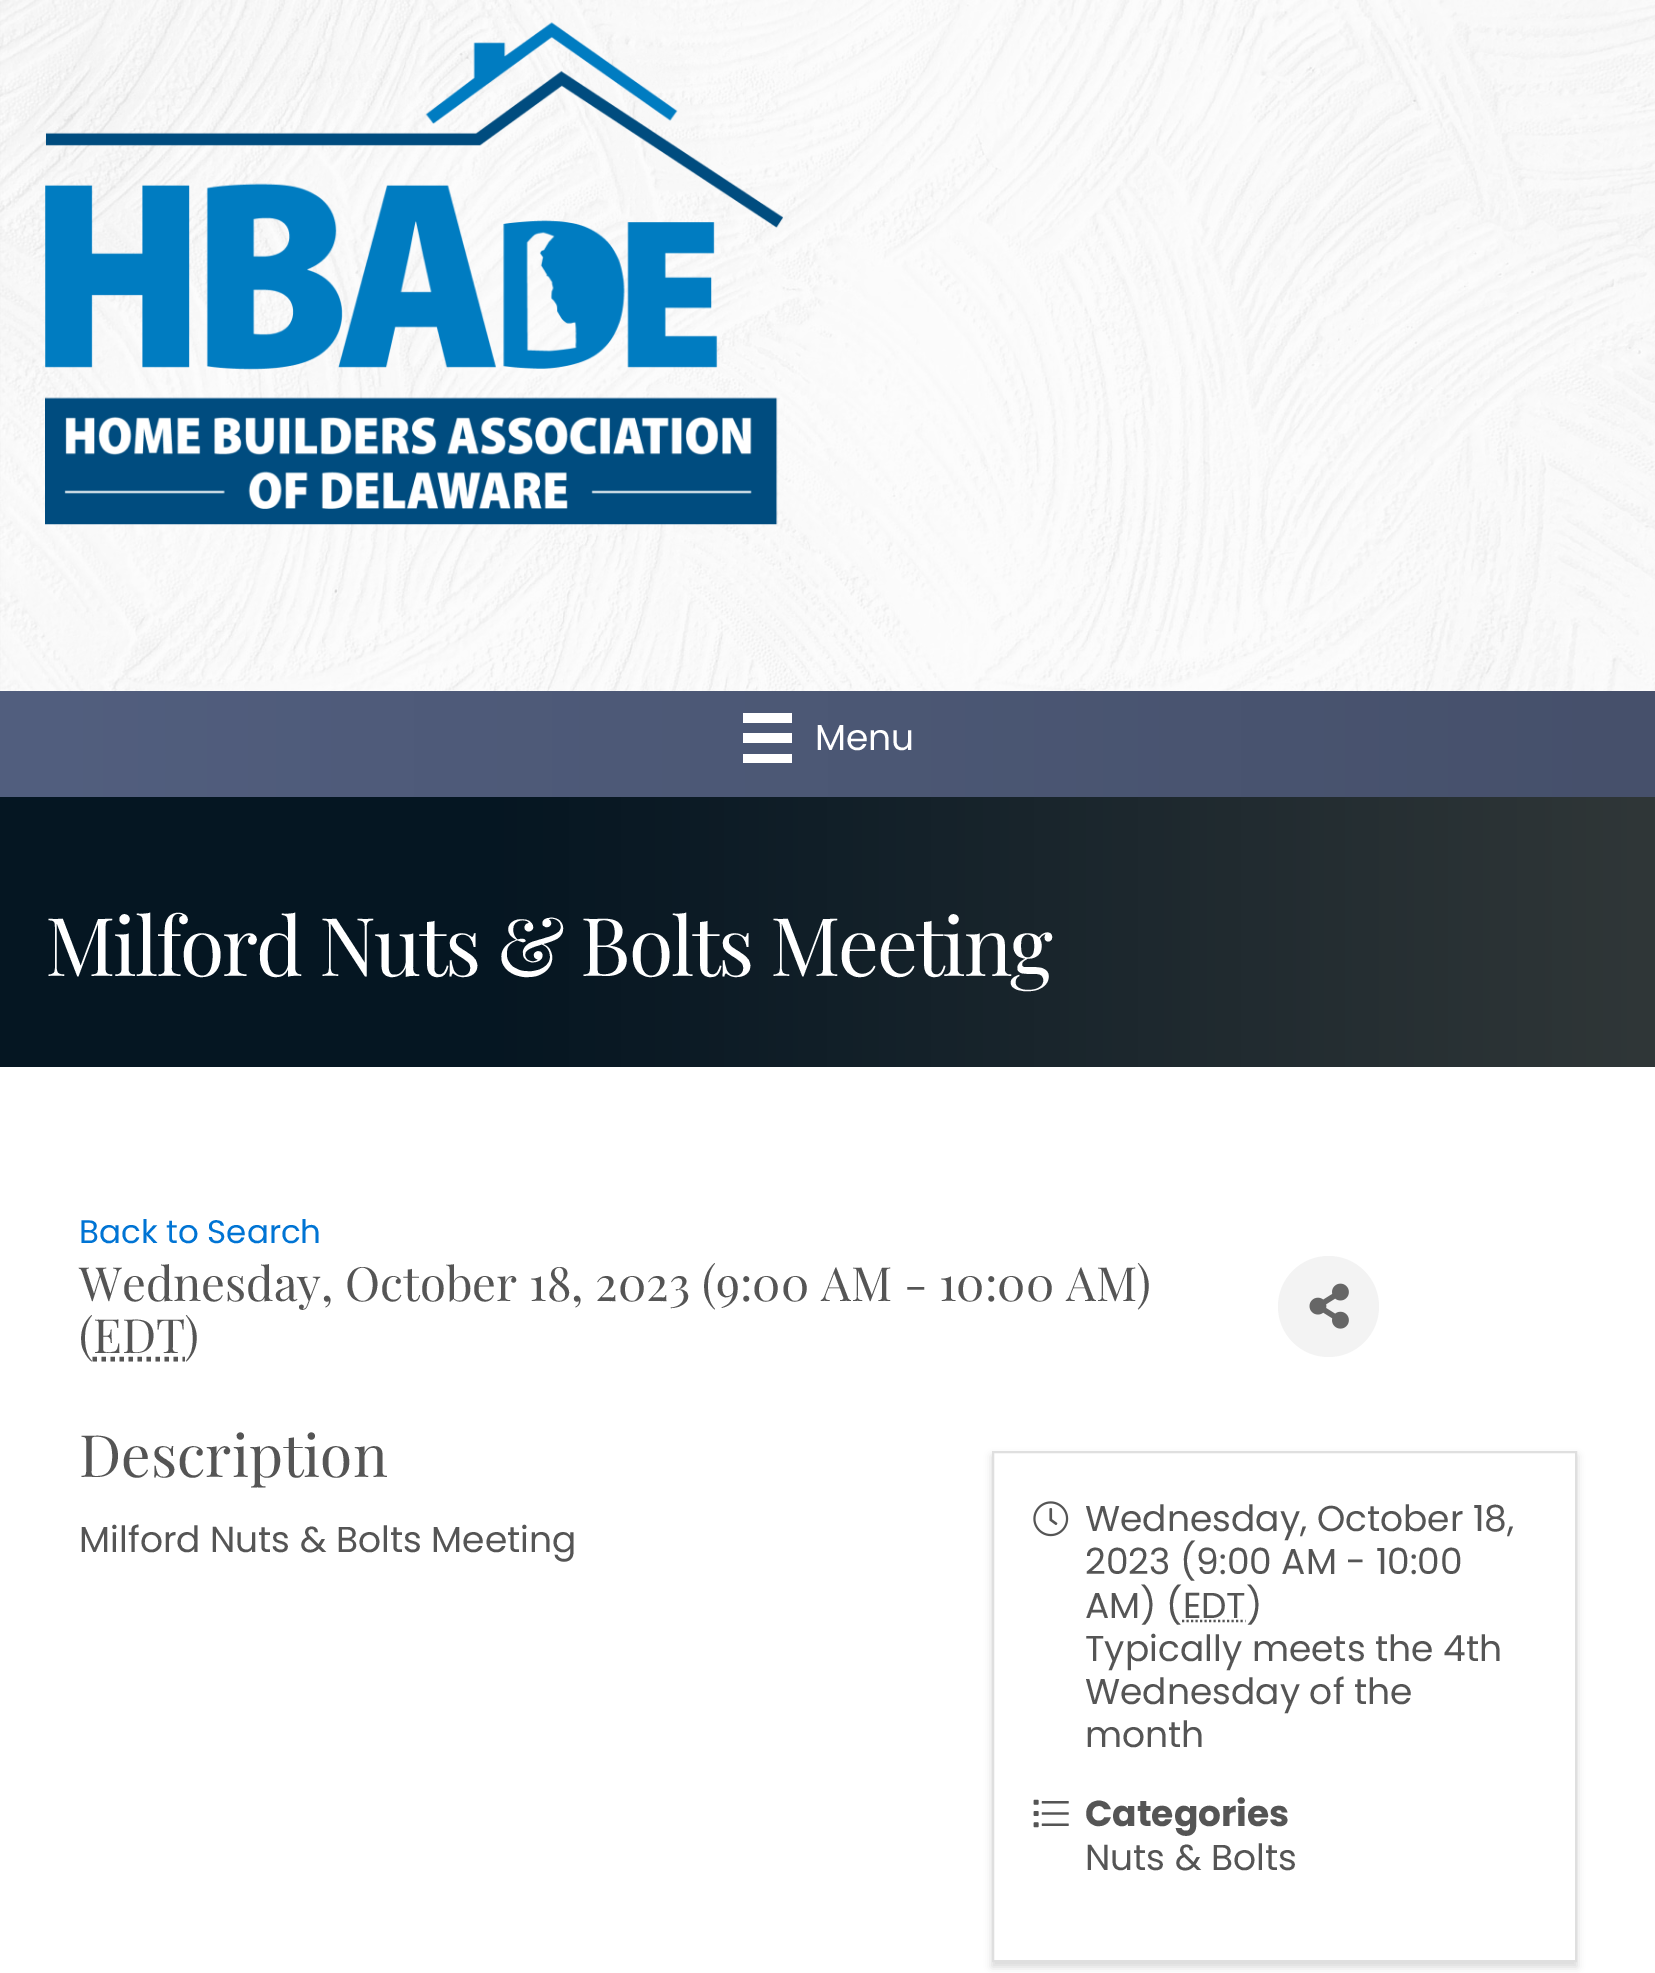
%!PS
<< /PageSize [1655 1973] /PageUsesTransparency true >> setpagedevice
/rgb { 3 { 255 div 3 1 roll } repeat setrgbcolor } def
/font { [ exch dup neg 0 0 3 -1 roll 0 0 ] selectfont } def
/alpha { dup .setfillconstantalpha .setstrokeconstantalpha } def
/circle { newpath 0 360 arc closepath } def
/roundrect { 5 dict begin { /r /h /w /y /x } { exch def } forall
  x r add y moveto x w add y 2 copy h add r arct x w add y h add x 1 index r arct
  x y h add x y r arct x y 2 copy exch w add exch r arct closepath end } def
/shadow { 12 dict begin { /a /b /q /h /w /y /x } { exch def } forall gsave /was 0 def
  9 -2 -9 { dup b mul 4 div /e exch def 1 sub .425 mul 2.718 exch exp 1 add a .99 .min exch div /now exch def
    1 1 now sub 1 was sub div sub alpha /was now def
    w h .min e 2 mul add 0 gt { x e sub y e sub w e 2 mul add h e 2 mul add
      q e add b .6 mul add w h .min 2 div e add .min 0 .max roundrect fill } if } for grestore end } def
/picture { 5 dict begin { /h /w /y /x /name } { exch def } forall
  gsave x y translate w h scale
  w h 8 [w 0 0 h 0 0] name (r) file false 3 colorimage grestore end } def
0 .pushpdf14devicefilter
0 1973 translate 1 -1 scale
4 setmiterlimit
255 255 255 rgb
0 0 1655 1973 rectfill
(img/1.rgb) 0 0 1655 691 picture
(img/2.rgb) 45 22 738 503 picture
gsave 0 691 moveto 1655 691 lineto 1655 797 lineto 0 797 lineto closepath clip newpath
<< /ShadingType 2 /ColorSpace /DeviceRGB /Coords [0 744 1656 744] /Extend [true true] /Function << /FunctionType 2 /Domain [0 1] /C0 [0.322 0.373 0.498] /C1 [0.275 0.314 0.42] /N 1 >> >> shfill grestore
[
  [743 713 49 10 255 255 255]
  [743 733 49 10 255 255 255]
  [743 754 49 9 255 255 255]
] { aload pop rgb rectfill } forall
gsave 0 797 moveto 1655 797 lineto 1655 1067 lineto 0 1067 lineto closepath clip newpath
<< /ShadingType 2 /ColorSpace /DeviceRGB /Coords [0 932 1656 932] /Extend [true true] /Function << /FunctionType 3 /Domain [0 1] /Functions [<< /FunctionType 2 /Domain [0 1] /C0 [0.02 0.086 0.133] /C1 [0.02 0.086 0.133] /N 1 >> << /FunctionType 2 /Domain [0 1] /C0 [0.02 0.086 0.133] /C1 [0.188 0.216 0.22] /N 1 >>] /Bounds [0.3] /Encode [0 1 0 1] >> >> shfill grestore
85 85 85 rgb
4.5 setlinewidth
[4.5 4.5] 0 setdash
92.5 1359 moveto 185 1359 lineto stroke
243 243 243 rgb
1328.5 1306.5 50.5 circle fill
(img/3.rgb) 1309 1283 40 46 picture
0 0 0 rgb
992 1456 585 511 0 4 0.15 shadow
255 255 255 rgb
993 1452 moveto 1576 1452 lineto 1576 1961 lineto 993 1961 lineto closepath gsave fill grestore
223 223 223 rgb
2 setlinewidth
[] 0 setdash
stroke
(img/4.rgb) 1033 1501 36 36 picture
85 85 85 rgb
2.2 setlinewidth
[2.25 2.25] 0 setdash
1182 1621 moveto 1245.5 1621 lineto stroke
(img/5.rgb) 1033 1799 36 29 picture
/Poppins-Regular 36 font
255 255 255 rgb
815 750 moveto (Menu) show
/PlayfairDisplay-Regular 81 font
45 976 moveto -2.25 0 (Milford Nuts & Bolts Meeting) ashow
/Poppins-Regular 32.5 font
0 116 212 rgb
79 1243 moveto (Back to Search) show
/PlayfairDisplay-Regular 47.25 font
85 85 85 rgb
79 1301 moveto (Wednesday, October 18, 2023 \(9:00 AM - 10:00 AM\)) show
79 1353 moveto (\(EDT\)) show
/PlayfairDisplay-Regular 58.5 font
79 1477 moveto (Description) show
/Poppins-Regular 36 font
[
  [(Milford Nuts & Bolts Meeting) 79 1552]
  [(Wednesday, October 18,) 1085 1531]
  [(2023 \(9:00 AM - 10:00) 1085 1574]
  [(AM\) \(EDT\)) 1085 1618]
  [(Typically meets the 4th) 1085 1661]
  [(Wednesday of the) 1085 1704]
  [(month) 1085 1747]
] { aload pop moveto show } forall
/Poppins-Bold 36 font
1085 1826 moveto (Categories) show
/Poppins-Regular 36 font
1085 1870 moveto (Nuts & Bolts) show
.poppdf14devicefilter showpage
